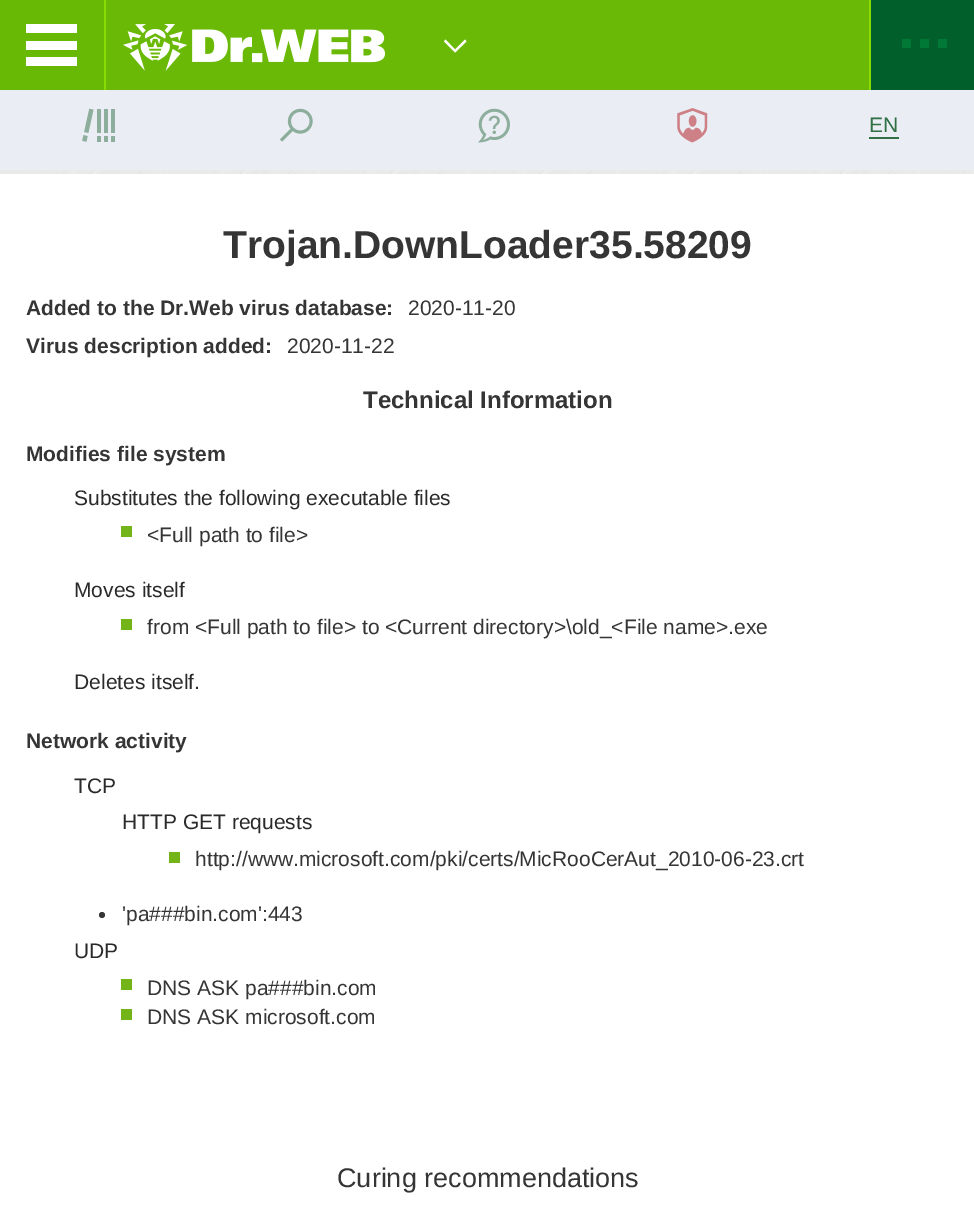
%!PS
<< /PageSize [974 1215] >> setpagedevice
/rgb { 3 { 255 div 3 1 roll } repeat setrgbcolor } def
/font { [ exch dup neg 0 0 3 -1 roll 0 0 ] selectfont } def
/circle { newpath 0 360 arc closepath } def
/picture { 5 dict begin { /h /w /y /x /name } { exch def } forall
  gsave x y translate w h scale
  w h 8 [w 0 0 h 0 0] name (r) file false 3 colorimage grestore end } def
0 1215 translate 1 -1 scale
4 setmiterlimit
233 233 233 rgb
0 0 974 1215 rectfill
(img/1.rgb) 29 170 945 4 picture
[
  [106 0 763 90 106 185 6]
  [0 0 104 90 104 185 5]
  [104 0 2 90 137 219 1]
  [26 24 51 9 255 255 255]
  [26 41 51 9 255 255 255]
  [26 57 51 9 255 255 255]
] { aload pop rgb rectfill } forall
(img/2.rgb) 123 24 263 47 picture
444 41.5 moveto 445.5 39.5 lineto 455 49.5 lineto 465 39.5 lineto 466.5 41.5 lineto 455 52.5 lineto closepath fill
[
  [871 0 103 90 0 95 42]
  [869 0 2 90 137 219 1]
  [902 39 9 9 1 121 54]
  [920 39 9 9 1 121 54]
  [938 39 9 9 1 121 54]
  [0 90 974 80 234 237 244]
] { aload pop rgb rectfill } forall
(img/3.rgb) 82 108 33 34 picture
(img/4.rgb) 279 108 34 34 picture
(img/5.rgb) 478 108 32 35 picture
(img/6.rgb) 677 108 31 35 picture
[
  [869 137 30 2 49 111 68]
  [0 174 974 1041 255 255 255]
  [121 526 11 11 115 180 25]
  [121 619 11 11 115 180 25]
  [169 852 11 11 115 180 25]
] { aload pop rgb rectfill } forall
53 53 53 rgb
102 915 3 circle fill
115 180 25 rgb
121 979 11 11 rectfill
121 1009 11 11 rectfill
/LiberationSans-Regular 21 font
49 111 68 rgb
869 132 moveto (EN) show
/LiberationSans-Bold 39 font
53 53 53 rgb
223 258 moveto (Trojan.DownLoader35.58209) show
/LiberationSans-Bold 21 font
26 315 moveto (Added to the Dr.Web virus database:) show
/LiberationSans-Regular 21 font
408 315 moveto (2020-11-20) show
/LiberationSans-Bold 21 font
26 353 moveto (Virus description added:) show
/LiberationSans-Regular 21 font
287 353 moveto (2020-11-22) show
/LiberationSans-Bold 24 font
363 408 moveto (Technical Information) show
/LiberationSans-Bold 21 font
26 461 moveto (Modifies file system) show
/LiberationSans-Regular 21 font
42 42 42 rgb
74 505 moveto (Substitutes the following executable files) show
53 53 53 rgb
147 542 moveto (<Full path to file>) show
42 42 42 rgb
74 597 moveto (Moves itself) show
53 53 53 rgb
147 634 moveto (from <Full path to file> to <Current directory>\\old_<File name>.exe) show
42 42 42 rgb
74 689 moveto (Deletes itself.) show
/LiberationSans-Bold 21 font
53 53 53 rgb
26 748 moveto (Network activity) show
/LiberationSans-Regular 21 font
42 42 42 rgb
74 793 moveto (TCP) show
122 829 moveto (HTTP GET requests) show
53 53 53 rgb
195 866 moveto (http://www.microsoft.com/pki/certs/MicRooCerAut_2010-06-23.crt) show
122 921 moveto ('pa###bin.com':443) show
42 42 42 rgb
74 958 moveto (UDP) show
53 53 53 rgb
147 995 moveto (DNS ASK pa###bin.com) show
147 1024 moveto (DNS ASK microsoft.com) show
/LiberationSans-Regular 27 font
337 1187 moveto (Curing recommendations) show
showpage
